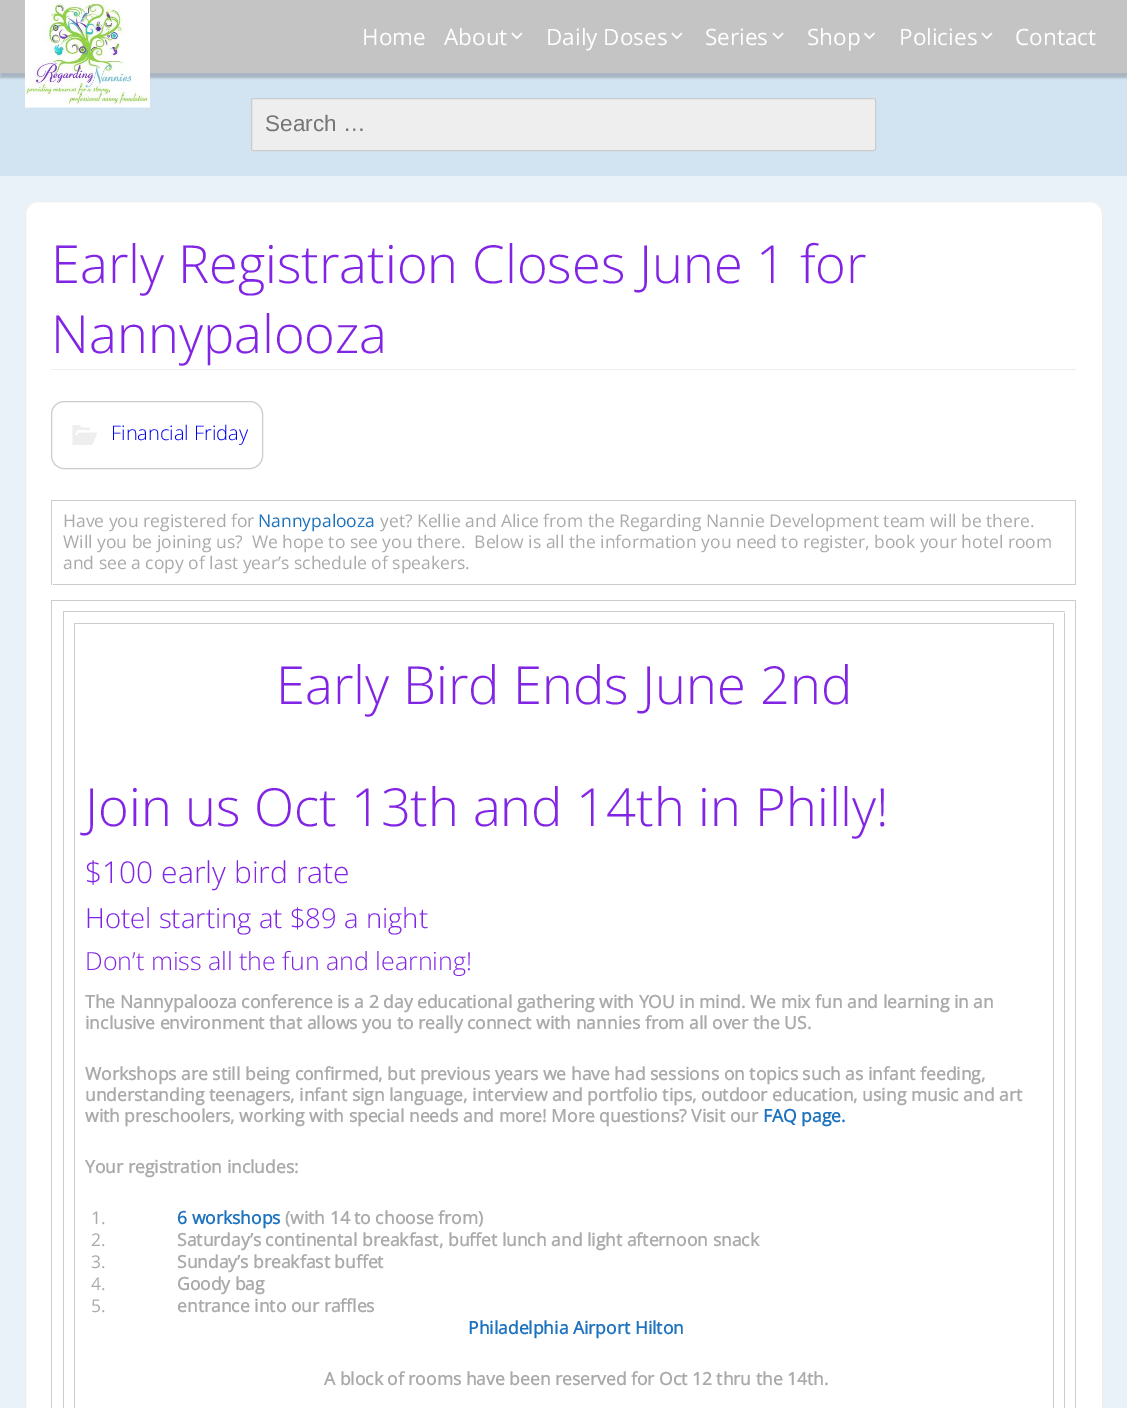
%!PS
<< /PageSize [1127 1408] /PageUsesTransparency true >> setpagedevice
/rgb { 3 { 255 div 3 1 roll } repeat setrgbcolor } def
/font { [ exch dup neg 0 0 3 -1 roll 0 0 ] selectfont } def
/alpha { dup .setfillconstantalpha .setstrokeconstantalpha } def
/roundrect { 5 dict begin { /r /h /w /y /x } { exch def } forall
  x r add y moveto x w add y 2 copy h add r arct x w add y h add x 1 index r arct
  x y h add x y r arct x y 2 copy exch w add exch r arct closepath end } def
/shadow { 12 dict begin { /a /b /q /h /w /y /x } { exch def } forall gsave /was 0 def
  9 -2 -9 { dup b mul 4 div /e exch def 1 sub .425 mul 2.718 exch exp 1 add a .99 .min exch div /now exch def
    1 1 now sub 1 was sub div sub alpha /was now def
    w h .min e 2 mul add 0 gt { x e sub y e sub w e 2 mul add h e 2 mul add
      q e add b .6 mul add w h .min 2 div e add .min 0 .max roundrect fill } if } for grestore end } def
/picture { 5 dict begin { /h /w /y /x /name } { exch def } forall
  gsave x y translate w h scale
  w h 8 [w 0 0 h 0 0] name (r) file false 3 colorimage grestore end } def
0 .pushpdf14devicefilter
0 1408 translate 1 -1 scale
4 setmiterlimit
210 227 242 rgb
0 0 1127 1408 rectfill
0 0 0 rgb
0 5 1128 73 0 1 0.2 shadow
196 196 196 rgb
0 0 1127 73 rectfill
(img/1.rgb) 25 0 125 108 picture
(img/2.rgb) 511 32 12 8 picture
(img/2.rgb) 671 32 12 8 picture
(img/3.rgb) 772 32 12 8 picture
(img/4.rgb) 864 32 11 8 picture
(img/2.rgb) 981 32 12 8 picture
238 238 238 rgb
251.5 98.5 624 52 2 roundrect gsave fill grestore
204 204 204 rgb
stroke
233 241 249 rgb
0 176 1127 1232 rectfill
255 255 255 rgb
25.5 201.5 1077 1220 12.5 roundrect gsave fill grestore
238 238 238 rgb
stroke
51 369 1025 1 rectfill
204 204 204 rgb
51.5 401.5 211 67 12.5 roundrect stroke
(img/5.rgb) 72 425 25 20 picture
[
  [51 500 1025 1 204 204 204]
  [51 500 1 85 204 204 204]
  [1075 501 1 84 204 204 204]
  [53 584 1023 1 204 204 204]
  [51 600 1025 1 204 204 204]
  [51 600 1 808 204 204 204]
  [1075 601 1 807 204 204 204]
  [63 611 1002 1 204 204 204]
  [63 611 1 797 204 204 204]
  [1064 613 1 795 204 204 204]
  [74 623 980 1 204 204 204]
  [74 623 1 785 204 204 204]
  [1053 624 1 784 204 204 204]
] { aload pop rgb rectfill } forall
/OpenSans-Regular 22.5 font
255 255 255 rgb
[
  [(Home) 362 45]
  [(About) 444 45]
  [(Daily Doses) 546 45]
  [(Series) 705 45]
  [(Shop) 807 45]
  [(Policies) 899 45]
  [(Contact) 1015 45]
] { aload pop moveto show } forall
/LiberationSans-Regular 22.5 font
117 117 117 rgb
265 131 moveto (Search …) show
/OpenSans-Light 52.5 font
130 36 227 rgb
51 283 moveto (Early Registration Closes June 1 for) show
51 353 moveto (Nannypalooza) show
/OpenSans-Light 20 font
0 0 238 rgb
111 440 moveto (Financial Friday) show
/OpenSans-Regular 17.5 font
170 170 170 rgb
63 527 moveto (Have you registered for) show
30 115 190 rgb
258 527 moveto (Nannypalooza) show
170 170 170 rgb
[
  [(yet? Kellie and Alice from the Regarding Nannie Development team will be there.) 380 527]
  [(Will you be joining us?  We hope to see you there.  Below is all the information you need to register, book your hotel room) 63 548]
  [(and see a copy of last year’s schedule of speakers.) 63 569]
] { aload pop moveto show } forall
/OpenSans-Light 52.5 font
130 36 227 rgb
276 704 moveto (Early Bird Ends June 2nd) show
85 826 moveto (Join us Oct 13th and 14th in Philly!) show
/OpenSans-Light 30 font
85 883 moveto ($100 early bird rate) show
/OpenSans-Light 27.5 font
85 928 moveto (Hotel starting at $89 a night) show
/OpenSans-Light 25 font
85 970 moveto (Don’t miss all the fun and learning!) show
/OpenSans-Bold 17.5 font
170 170 170 rgb
[
  [(The Nannypalooza conference is a 2 day educational gathering with YOU in mind. We mix fun and learning in an) 85 1008]
  [(inclusive environment that allows you to really connect with nannies from all over the US.) 85 1029]
  [(Workshops are still being confirmed, but previous years we have had sessions on topics such as infant feeding,) 85 1080]
  [(understanding teenagers, infant sign language, interview and portfolio tips, outdoor education, using music and art) 85 1101]
  [(with preschoolers, working with special needs and more! More questions? Visit our) 85 1122]
] { aload pop moveto show } forall
30 115 190 rgb
763 1122 moveto (FAQ page.) show
170 170 170 rgb
85 1173 moveto (Your registration includes:) show
/OpenSans-Regular 17.5 font
91 1224 moveto (1.) show
/OpenSans-Bold 17.5 font
30 115 190 rgb
177 1224 moveto (6 workshops) show
170 170 170 rgb
285 1224 moveto (\(with 14 to choose from\)) show
/OpenSans-Regular 17.5 font
91 1246 moveto (2.) show
/OpenSans-Bold 17.5 font
177 1246 moveto (Saturday’s continental breakfast, buffet lunch and light afternoon snack) show
/OpenSans-Regular 17.5 font
91 1268 moveto (3.) show
/OpenSans-Bold 17.5 font
177 1268 moveto (Sunday’s breakfast buffet) show
/OpenSans-Regular 17.5 font
91 1290 moveto (4.) show
/OpenSans-Bold 17.5 font
177 1290 moveto (Goody bag) show
/OpenSans-Regular 17.5 font
91 1312 moveto (5.) show
/OpenSans-Bold 17.5 font
177 1312 moveto (entrance into our raffles) show
30 115 190 rgb
468 1334 moveto (Philadelphia Airport Hilton) show
170 170 170 rgb
324 1385 moveto (A block of rooms have been reserved for Oct 12 thru the 14th.) show
.poppdf14devicefilter showpage
